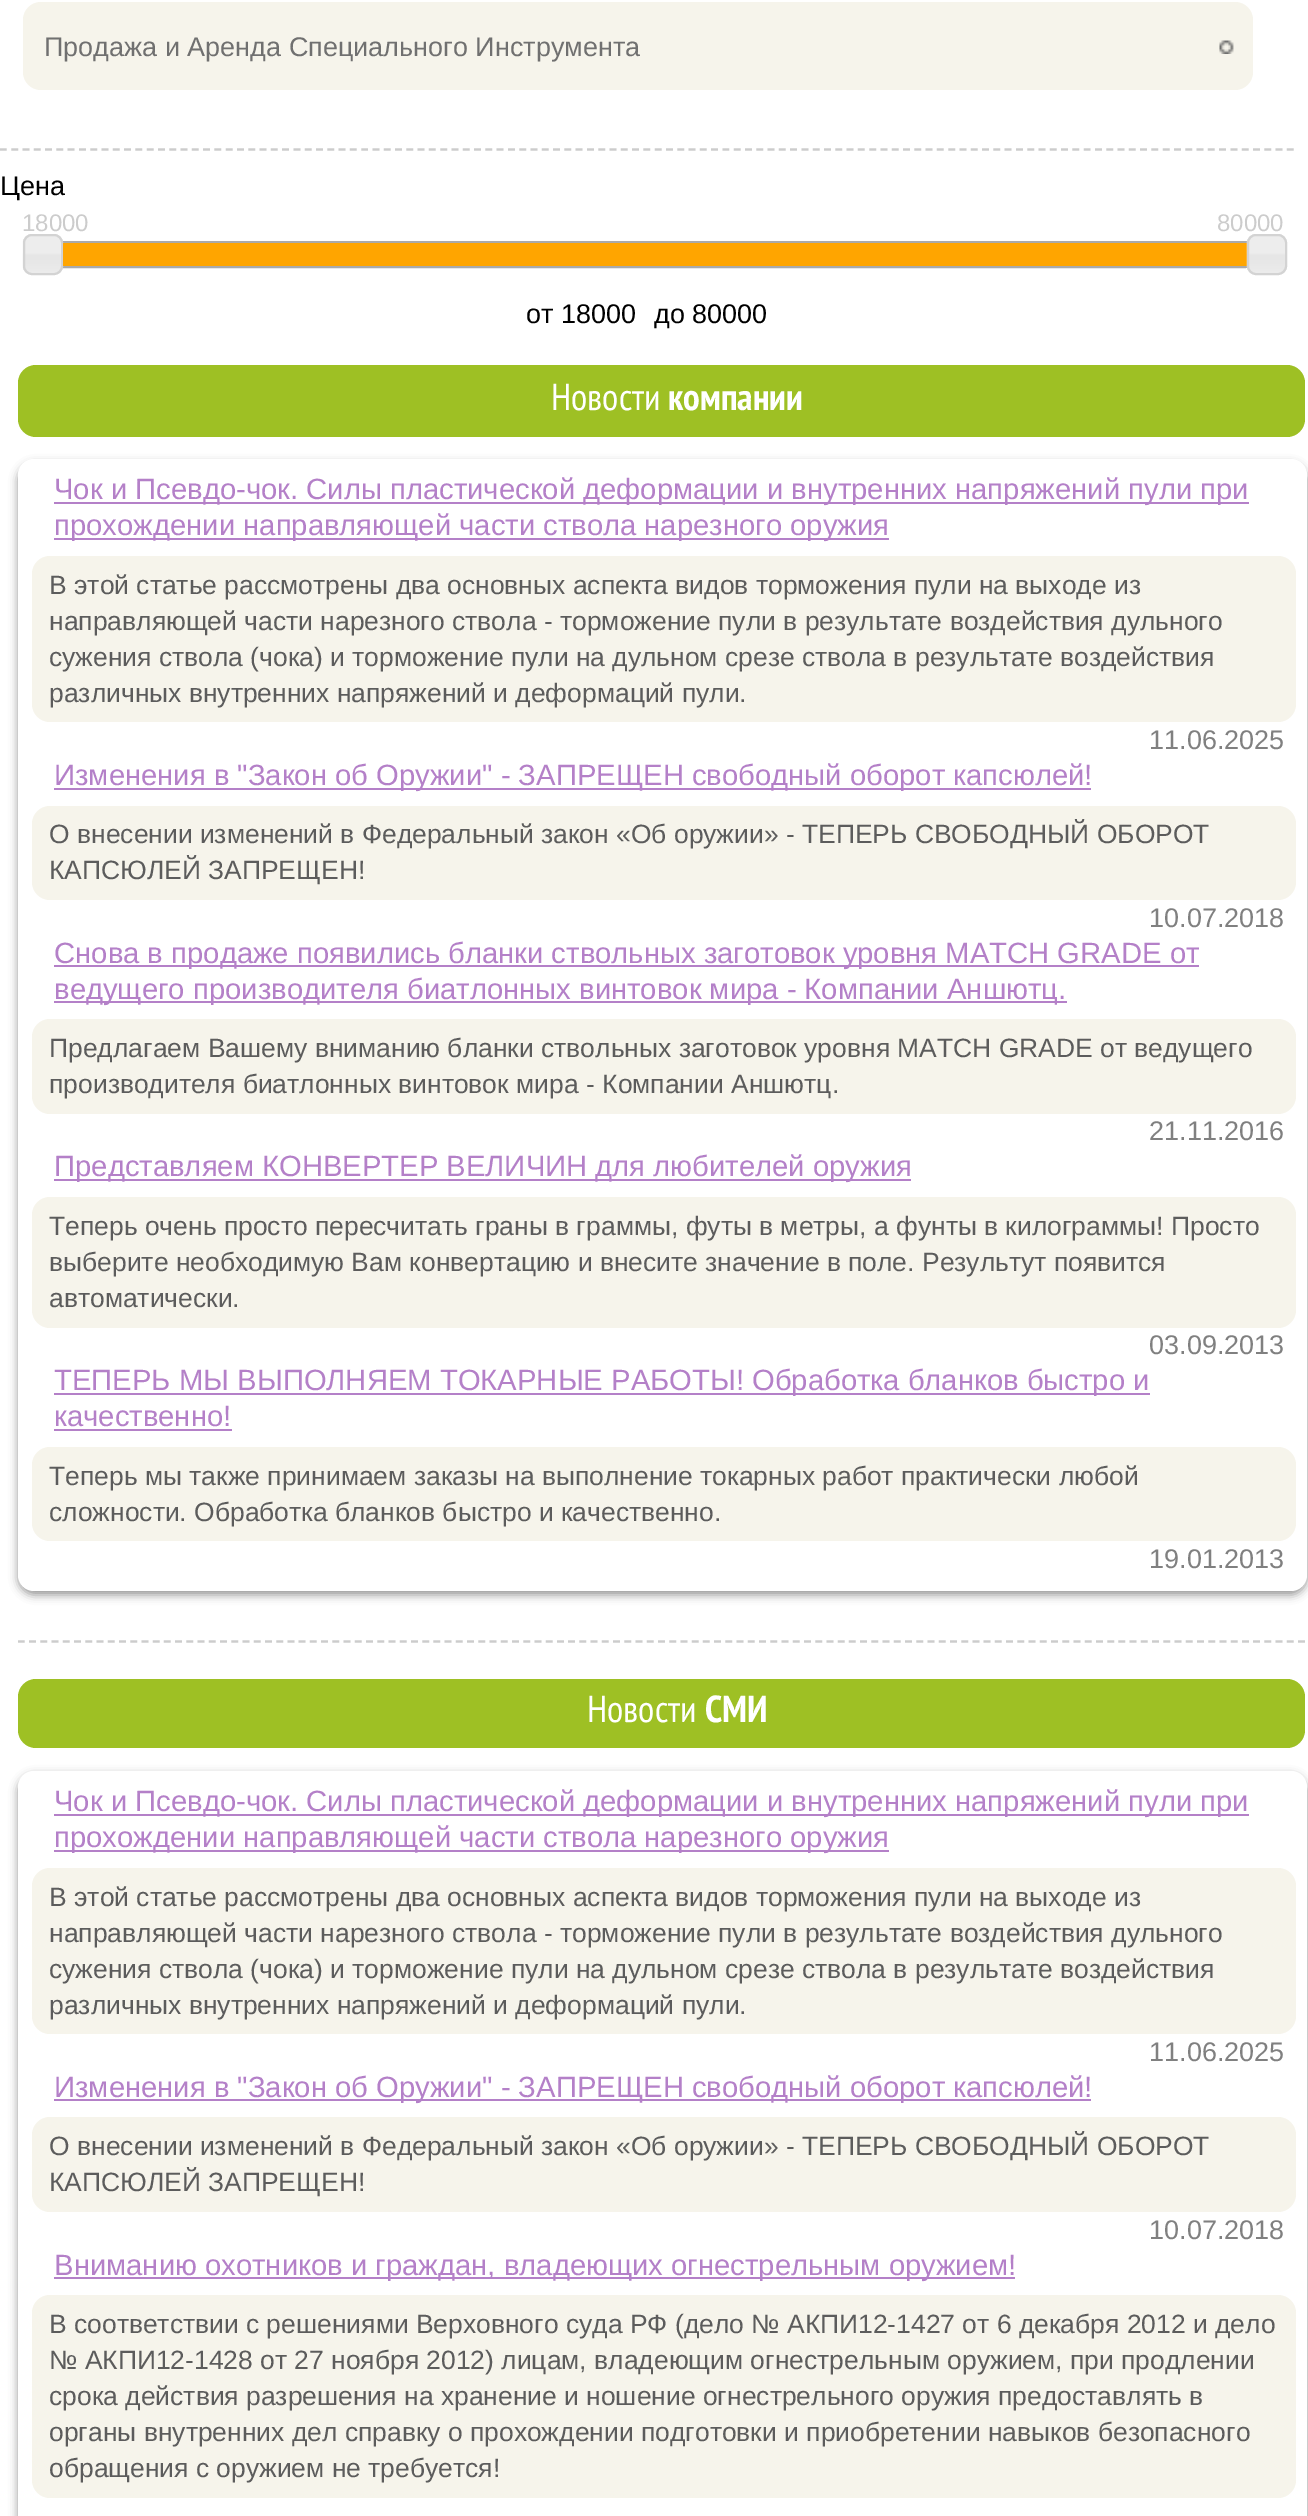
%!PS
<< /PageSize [1308 2516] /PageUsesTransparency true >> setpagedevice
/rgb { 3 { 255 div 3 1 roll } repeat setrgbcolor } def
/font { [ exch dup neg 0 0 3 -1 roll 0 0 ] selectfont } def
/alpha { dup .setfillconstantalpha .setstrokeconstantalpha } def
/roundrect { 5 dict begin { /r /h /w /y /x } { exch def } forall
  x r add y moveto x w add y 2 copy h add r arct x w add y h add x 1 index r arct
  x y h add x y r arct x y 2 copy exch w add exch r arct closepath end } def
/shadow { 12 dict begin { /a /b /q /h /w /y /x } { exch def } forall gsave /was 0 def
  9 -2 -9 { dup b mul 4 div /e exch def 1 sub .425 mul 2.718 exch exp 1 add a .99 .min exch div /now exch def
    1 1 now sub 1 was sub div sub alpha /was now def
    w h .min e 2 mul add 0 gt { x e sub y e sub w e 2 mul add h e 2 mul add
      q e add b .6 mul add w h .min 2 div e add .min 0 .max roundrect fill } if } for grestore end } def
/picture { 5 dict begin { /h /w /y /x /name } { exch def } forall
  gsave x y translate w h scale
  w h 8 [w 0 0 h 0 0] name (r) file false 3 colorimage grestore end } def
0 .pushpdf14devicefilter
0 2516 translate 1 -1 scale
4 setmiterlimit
255 255 255 rgb
0 0 1308 2516 rectfill
246 244 235 rgb
23 2 1230 88 18 roundrect fill
(img/1.rgb) 1219 40 15 14 picture
204 204 204 rgb
2.2 setlinewidth
[6.75 4.54] 0 setdash
0 149.5 moveto 1294 149.5 lineto stroke
170 170 170 rgb
2 setlinewidth
[] 0 setdash
39 242 1227 25 rectstroke
(img/2.rgb) 22 234 41 40 picture
211 211 211 rgb
24 235 38 39 8 roundrect stroke
255 165 0 rgb
63 243 1184 23 rectfill
(img/3.rgb) 1246 234 41 40 picture
211 211 211 rgb
1248 235 38 39 8 roundrect stroke
158 192 36 rgb
18 365 1287 72 18 roundrect fill
50 50 50 rgb
18 464 1289 1131 16 4.5 0.51 shadow
255 255 255 rgb
18 459 1289 1132 16 roundrect fill
180 128 200 rgb
54 502 1195 2 rectfill
54 538 835 2 rectfill
246 244 235 rgb
32 556 1264 166 18 roundrect fill
180 128 200 rgb
54 788 1037 2 rectfill
246 244 235 rgb
32 806 1264 94 18 roundrect fill
180 128 200 rgb
54 965 1145 2 rectfill
54 1001 1013 2 rectfill
246 244 235 rgb
32 1019 1264 95 18 roundrect fill
180 128 200 rgb
54 1179 857 2 rectfill
246 244 235 rgb
32 1197 1264 131 18 roundrect fill
180 128 200 rgb
54 1393 1096 2 rectfill
54 1429 178 2 rectfill
246 244 235 rgb
32 1447 1264 94 18 roundrect fill
204 204 204 rgb
2.2 setlinewidth
[6.75 4.48] 0 setdash
18 1641.5 moveto 1305 1641.5 lineto stroke
158 192 36 rgb
18 1679 1287 69 18 roundrect fill
gsave
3 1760 moveto 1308 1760 lineto 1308 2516 lineto 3 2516 lineto closepath 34 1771 moveto 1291 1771 lineto 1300 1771 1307 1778 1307 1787 curveto 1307 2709 lineto 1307 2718 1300 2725 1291 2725 curveto 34 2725 lineto 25 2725 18 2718 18 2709 curveto 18 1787 lineto 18 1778 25 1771 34 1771 curveto closepath eoclip newpath
50 50 50 rgb
18 1775 1289 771 16 4.5 0.51 shadow
grestore
255 255 255 rgb
18 1771 1289 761 16 roundrect fill
180 128 200 rgb
54 1814 1195 2 rectfill
54 1850 835 2 rectfill
246 244 235 rgb
32 1868 1264 166 18 roundrect fill
180 128 200 rgb
54 2099 1037 2 rectfill
246 244 235 rgb
32 2117 1264 95 18 roundrect fill
180 128 200 rgb
54 2277 961 2 rectfill
246 244 235 rgb
32 2295 1264 203 18 roundrect fill
/LiberationSans-Regular 27 font
112 112 112 rgb
44 56 moveto (Продажа и Аренда Специального Инструмента) show
0 0 0 rgb
0 195 moveto (Цена) show
/LiberationSans-Regular 24 font
204 204 204 rgb
22 231 moveto (18000) show
1217 231 moveto (80000) show
/LiberationSans-Regular 27 font
0 0 0 rgb
526 323 moveto (от 18000) show
654 323 moveto (до 80000) show
/PTSansNarrow-Regular 37.5 font
255 255 255 rgb
551 410 moveto (Новости) show
/PTSansNarrow-Bold 37.5 font
668 410 moveto (компании) show
/LiberationSans-Regular 29.25 font
180 128 200 rgb
54 499 moveto (Чок и Псевдо-чок. Силы пластической деформации и внутренних напряжений пули при) show
54 535 moveto (прохождении направляющей части ствола нарезного оружия) show
/LiberationSans-Regular 26.45 font
92 92 92 rgb
[
  [(В этой статье рассмотрены два основных аспекта видов торможения пули на выходе из) 49 594]
  [(направляющей части нарезного ствола - торможение пули в результате воздействия дульного) 49 630]
  [(сужения ствола \(чока\) и торможение пули на дульном срезе ствола в результате воздействия) 49 666]
  [(различных внутренних напряжений и деформаций пули.) 49 702]
] { aload pop moveto show } forall
/LiberationSans-Regular 27 font
128 128 128 rgb
1149 749 moveto (11.06.2025) show
/LiberationSans-Regular 29.25 font
180 128 200 rgb
54 785 moveto (Изменения в "Закон об Оружии" - ЗАПРЕЩЕН свободный оборот капсюлей!) show
/LiberationSans-Regular 26.45 font
92 92 92 rgb
49 843 moveto (О внесении изменений в Федеральный закон «Об оружии» - ТЕПЕРЬ СВОБОДНЫЙ ОБОРОТ) show
49 879 moveto (КАПСЮЛЕЙ ЗАПРЕЩЕН!) show
/LiberationSans-Regular 27 font
128 128 128 rgb
1149 927 moveto (10.07.2018) show
/LiberationSans-Regular 29.25 font
180 128 200 rgb
54 963 moveto (Снова в продаже появились бланки ствольных заготовок уровня MATCH GRADE от) show
54 999 moveto (ведущего производителя биатлонных винтовок мира - Компании Аншютц.) show
/LiberationSans-Regular 26.45 font
92 92 92 rgb
[
  [(Предлагаем Вашему вниманию бланки ствольных заготовок уровня MATCH GRADE от ведущего) 49 1057]
  [(производителя биатлонных винтовок мира) 49 1093]
  [(- Компании Аншютц.) 586 1093]
] { aload pop moveto show } forall
/LiberationSans-Regular 27 font
128 128 128 rgb
1149 1140 moveto (21.11.2016) show
/LiberationSans-Regular 29.25 font
180 128 200 rgb
54 1176 moveto (Представляем КОНВЕРТЕР ВЕЛИЧИН для любителей оружия) show
/LiberationSans-Regular 26.45 font
92 92 92 rgb
[
  [(Теперь очень просто пересчитать граны в граммы, футы в метры, а фунты в килограммы! Просто) 49 1235]
  [(выберите необходимую Вам конвертацию и внесите значение в поле. Результут появится) 49 1271]
  [(автоматически.) 49 1307]
] { aload pop moveto show } forall
/LiberationSans-Regular 27 font
128 128 128 rgb
1149 1354 moveto (03.09.2013) show
/LiberationSans-Regular 29.25 font
180 128 200 rgb
54 1390 moveto (ТЕПЕРЬ МЫ ВЫПОЛНЯЕМ ТОКАРНЫЕ РАБОТЫ! Обработка бланков быстро и) show
54 1426 moveto (качественно!) show
/LiberationSans-Regular 26.45 font
92 92 92 rgb
49 1485 moveto (Теперь мы также принимаем заказы на выполнение токарных работ практически любой) show
49 1521 moveto (сложности. Обработка бланков быстро и качественно.) show
/LiberationSans-Regular 27 font
128 128 128 rgb
1149 1568 moveto (19.01.2013) show
/PTSansNarrow-Regular 37.5 font
255 255 255 rgb
587 1722 moveto (Новости) show
/PTSansNarrow-Bold 37.5 font
705 1722 moveto (СМИ) show
/LiberationSans-Regular 29.25 font
180 128 200 rgb
54 1811 moveto (Чок и Псевдо-чок. Силы пластической деформации и внутренних напряжений пули при) show
54 1847 moveto (прохождении направляющей части ствола нарезного оружия) show
/LiberationSans-Regular 26.45 font
92 92 92 rgb
[
  [(В этой статье рассмотрены два основных аспекта видов торможения пули на выходе из) 49 1906]
  [(направляющей части нарезного ствола - торможение пули в результате воздействия дульного) 49 1942]
  [(сужения ствола \(чока\) и торможение пули на дульном срезе ствола в результате воздействия) 49 1978]
  [(различных внутренних напряжений и деформаций пули.) 49 2014]
] { aload pop moveto show } forall
/LiberationSans-Regular 27 font
128 128 128 rgb
1149 2061 moveto (11.06.2025) show
/LiberationSans-Regular 29.25 font
180 128 200 rgb
54 2097 moveto (Изменения в "Закон об Оружии" - ЗАПРЕЩЕН свободный оборот капсюлей!) show
/LiberationSans-Regular 26.45 font
92 92 92 rgb
49 2155 moveto (О внесении изменений в Федеральный закон «Об оружии» - ТЕПЕРЬ СВОБОДНЫЙ ОБОРОТ) show
49 2191 moveto (КАПСЮЛЕЙ ЗАПРЕЩЕН!) show
/LiberationSans-Regular 27 font
128 128 128 rgb
1149 2239 moveto (10.07.2018) show
/LiberationSans-Regular 29.25 font
180 128 200 rgb
54 2275 moveto (Вниманию охотников и граждан, владеющих огнестрельным оружием!) show
/LiberationSans-Regular 26.45 font
92 92 92 rgb
[
  [(В соответствии с решениями Верховного суда РФ \(дело № АКПИ12-1427 от 6 декабря 2012 и дело) 49 2333]
  [(№ АКПИ12-1428 от 27 ноября 2012\) лицам, владеющим огнестрельным оружием, при продлении) 49 2369]
  [(срока действия разрешения на хранение и ношение огнестрельного оружия предоставлять в) 49 2405]
  [(органы внутренних дел справку о прохождении подготовки и приобретении навыков безопасного) 49 2441]
  [(обращения с оружием не требуется!) 49 2477]
] { aload pop moveto show } forall
.poppdf14devicefilter showpage
